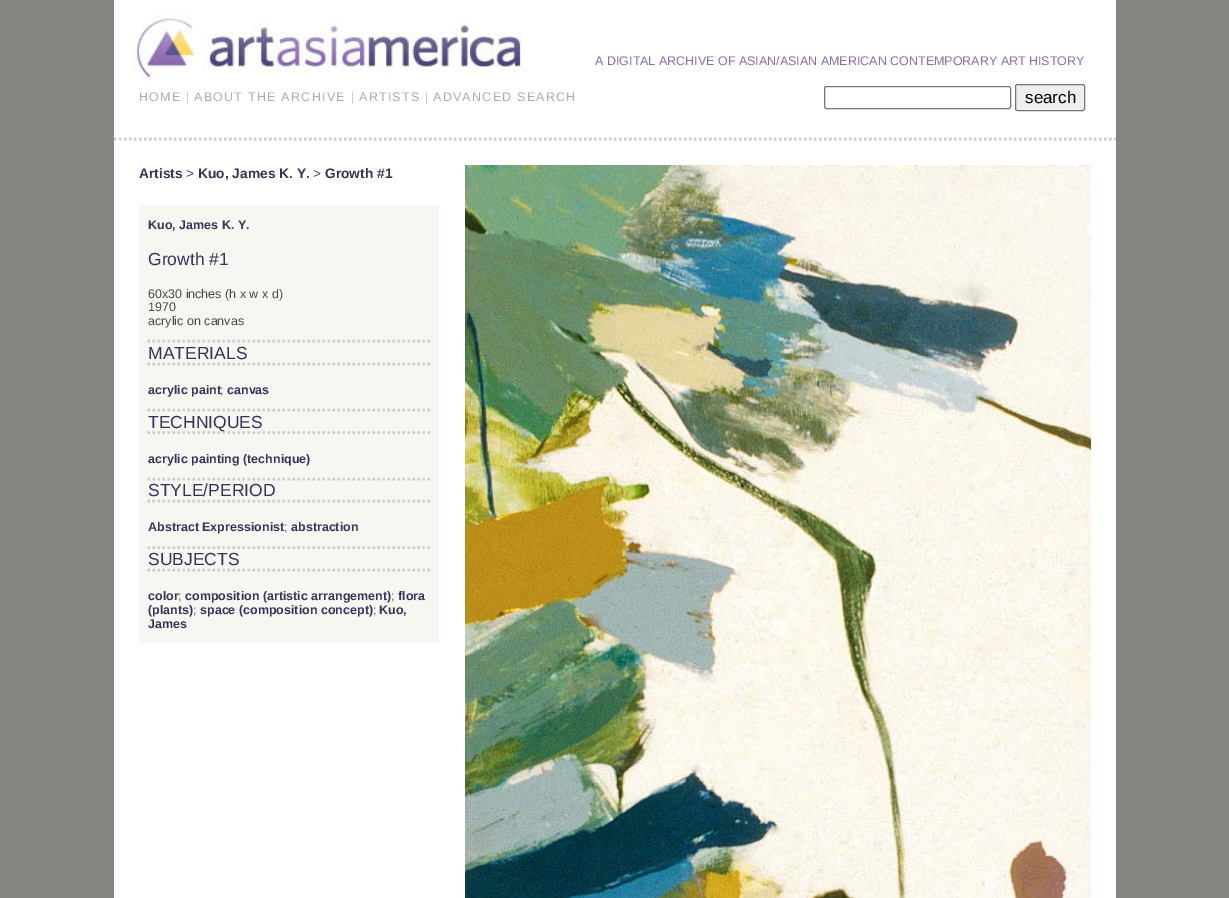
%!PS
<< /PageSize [1229 898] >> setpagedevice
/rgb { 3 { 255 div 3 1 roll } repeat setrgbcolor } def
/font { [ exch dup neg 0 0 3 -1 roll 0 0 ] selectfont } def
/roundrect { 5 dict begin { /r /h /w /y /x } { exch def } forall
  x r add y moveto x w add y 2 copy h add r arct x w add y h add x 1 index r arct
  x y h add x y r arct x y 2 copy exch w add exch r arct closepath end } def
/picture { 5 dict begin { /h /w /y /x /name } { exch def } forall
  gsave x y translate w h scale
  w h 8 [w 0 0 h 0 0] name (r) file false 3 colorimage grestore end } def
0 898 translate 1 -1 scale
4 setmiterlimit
133 132 127 rgb
0 0 1229 898 rectfill
255 255 255 rgb
114 0 1002 898 rectfill
(img/1.rgb) 132 12 391 71 picture
118 118 118 rgb
824.5 86.5 186 22 2 roundrect stroke
239 239 239 rgb
1015.5 84.5 69 26 2 roundrect gsave fill grestore
118 118 118 rgb
stroke
204 204 204 rgb
2.5 setlinewidth
[2.5 2.5] 0 setdash
114 139 moveto 1116 139 lineto stroke
247 246 241 rgb
139 205 300 438 rectfill
204 204 204 rgb
147.5 341 moveto 430 341 lineto stroke
147.5 364 moveto 430 364 lineto stroke
147.5 410 moveto 430 410 lineto stroke
147.5 432.5 moveto 430 432.5 lineto stroke
147.5 479 moveto 430 479 lineto stroke
147.5 501 moveto 430 501 lineto stroke
147.5 547.5 moveto 430 547.5 lineto stroke
147.5 570 moveto 430 570 lineto stroke
(img/2.rgb) 465 165 627 733 picture
/LiberationSans-Regular 12.5 font
139 107 181 rgb
595 65 moveto (A DIGITAL ARCHIVE OF ASIAN/ASIAN AMERICAN CONTEMPORARY ART HISTORY) show
173 173 173 rgb
139 101 moveto 1.25 0 (HOME) ashow
204 204 204 rgb
186 101 moveto 1.25 0 (|) ashow
173 173 173 rgb
194 101 moveto 1.25 0 (ABOUT THE ARCHIVE) ashow
204 204 204 rgb
351 101 moveto 1.25 0 (|) ashow
173 173 173 rgb
359 101 moveto 1.25 0 (ARTISTS) ashow
204 204 204 rgb
425 101 moveto 1.25 0 (|) ashow
173 173 173 rgb
433 101 moveto 1.25 0 (ADVANCED SEARCH) ashow
/LiberationSans-Regular 17 font
0 0 0 rgb
1025 103 moveto (search) show
/LiberationSans-Bold 13.75 font
53 51 94 rgb
139 178 moveto (Artists) show
/LiberationSans-Regular 13.75 font
72 72 74 rgb
186 178 moveto (>) show
/LiberationSans-Bold 13.75 font
53 51 94 rgb
198 178 moveto (Kuo, James K. Y.) show
/LiberationSans-Regular 13.75 font
72 72 74 rgb
313 178 moveto (>) show
/LiberationSans-Bold 13.75 font
53 51 94 rgb
325 178 moveto (Growth #1) show
/LiberationSans-Bold 12.5 font
148 229 moveto (Kuo, James K. Y.) show
/LiberationSans-Regular 17.5 font
148 265 moveto (Growth #1) show
/LiberationSans-Regular 12.5 font
72 72 74 rgb
[
  [(60x30 inches \(h x w x d\)) 148 298]
  [(1970) 148 311]
  [(acrylic on canvas) 148 325]
] { aload pop moveto show } forall
/LiberationSans-Regular 17.5 font
53 51 94 rgb
148 359 moveto (MATERIALS) show
/LiberationSans-Bold 12.5 font
148 394 moveto (acrylic paint) show
/LiberationSans-Regular 12.5 font
72 72 74 rgb
220 394 moveto (;) show
/LiberationSans-Bold 12.5 font
53 51 94 rgb
227 394 moveto (canvas) show
/LiberationSans-Regular 17.5 font
148 428 moveto (TECHNIQUES) show
/LiberationSans-Bold 12.5 font
148 463 moveto (acrylic painting \(technique\)) show
/LiberationSans-Regular 17.5 font
148 496 moveto (STYLE/PERIOD) show
/LiberationSans-Bold 12.5 font
148 531 moveto (Abstract Expressionist) show
/LiberationSans-Regular 12.5 font
72 72 74 rgb
284 531 moveto (;) show
/LiberationSans-Bold 12.5 font
53 51 94 rgb
291 531 moveto (abstraction) show
/LiberationSans-Regular 17.5 font
148 565 moveto (SUBJECTS) show
/LiberationSans-Bold 12.5 font
148 600 moveto (color) show
/LiberationSans-Regular 12.5 font
72 72 74 rgb
178 600 moveto (;) show
/LiberationSans-Bold 12.5 font
53 51 94 rgb
185 600 moveto (composition \(artistic arrangement\)) show
/LiberationSans-Regular 12.5 font
72 72 74 rgb
391 600 moveto (;) show
/LiberationSans-Bold 12.5 font
53 51 94 rgb
398 600 moveto (flora) show
148 614 moveto (\(plants\)) show
/LiberationSans-Regular 12.5 font
72 72 74 rgb
193 614 moveto (;) show
/LiberationSans-Bold 12.5 font
53 51 94 rgb
200 614 moveto (space \(composition concept\)) show
/LiberationSans-Regular 12.5 font
72 72 74 rgb
373 614 moveto (;) show
/LiberationSans-Bold 12.5 font
53 51 94 rgb
379 614 moveto (Kuo,) show
148 628 moveto (James) show
showpage
